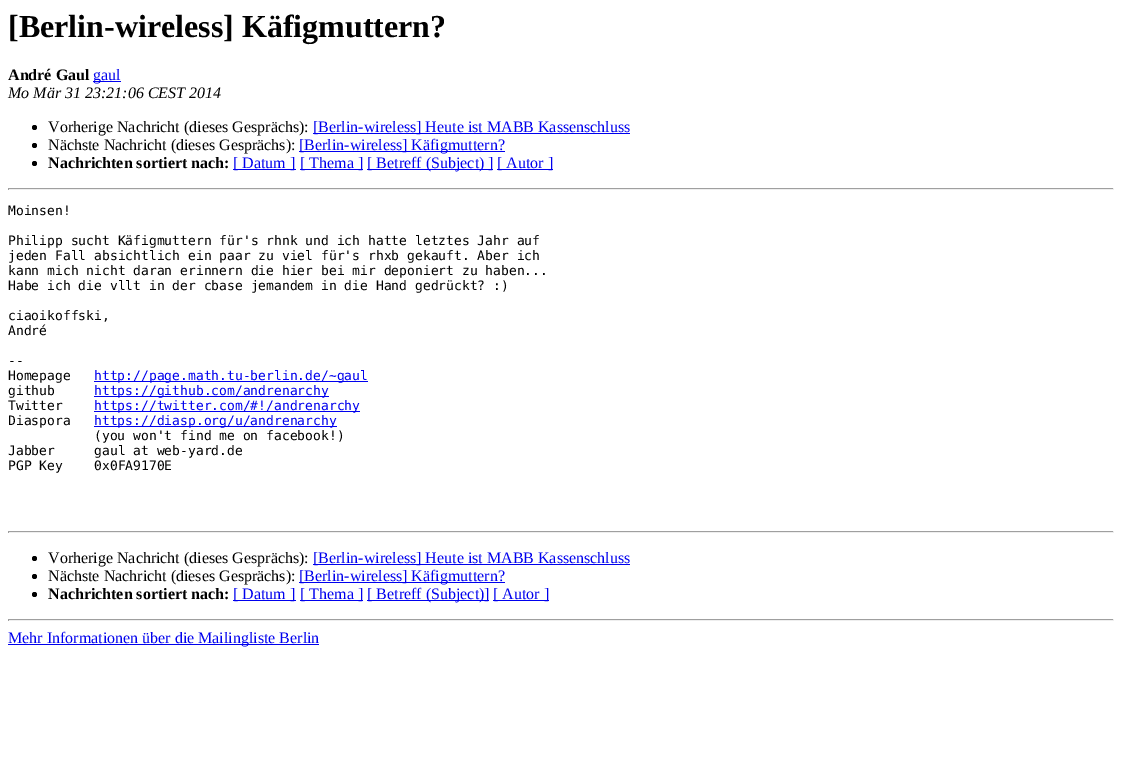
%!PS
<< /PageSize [1122 773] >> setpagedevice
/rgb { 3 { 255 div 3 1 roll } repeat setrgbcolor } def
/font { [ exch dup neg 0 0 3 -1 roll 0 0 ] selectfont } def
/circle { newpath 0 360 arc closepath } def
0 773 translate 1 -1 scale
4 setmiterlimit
255 255 255 rgb
0 0 1122 773 rectfill
0 0 238 rgb
93 81 28 1 rectfill
0 0 0 rgb
34.5 127.5 2.5 circle fill
0 0 238 rgb
313 133 317 1 rectfill
0 0 0 rgb
34.5 145.5 2.5 circle fill
0 0 238 rgb
299 151 206 1 rectfill
0 0 0 rgb
34.5 163.5 2.5 circle fill
[
  [233 169 63 1 0 0 238]
  [300 169 63 1 0 0 238]
  [367 169 126 1 0 0 238]
  [497 169 56 1 0 0 238]
  [8 188 1106 1 159 159 159]
  [1113 188 1 2 238 238 238]
  [8 189 1106 1 238 238 238]
  [8 188 1 2 159 159 159]
  [94 381 274 1 0 0 238]
  [94 396 235 1 0 0 238]
  [94 411 266 1 0 0 238]
  [94 426 243 1 0 0 238]
  [8 531 1106 1 159 159 159]
  [1113 531 1 2 238 238 238]
  [8 532 1106 1 238 238 238]
  [8 531 1 2 159 159 159]
] { aload pop rgb rectfill } forall
0 0 0 rgb
34.5 558.5 2.5 circle fill
0 0 238 rgb
313 564 317 1 rectfill
0 0 0 rgb
34.5 576.5 2.5 circle fill
0 0 238 rgb
299 582 206 1 rectfill
0 0 0 rgb
34.5 594.5 2.5 circle fill
[
  [233 600 63 1 0 0 238]
  [300 600 63 1 0 0 238]
  [367 600 122 1 0 0 238]
  [493 600 56 1 0 0 238]
  [8 619 1106 1 159 159 159]
  [1113 619 1 2 238 238 238]
  [8 620 1106 1 238 238 238]
  [8 619 1 2 159 159 159]
  [8 644 311 1 0 0 238]
] { aload pop rgb rectfill } forall
/LiberationSerif-Bold 32 font
0 0 0 rgb
8 37 moveto ([Berlin-wireless] Käfigmuttern?) show
/LiberationSerif-Bold 16 font
8 80 moveto (André Gaul) show
/LiberationSerif-Regular 16 font
0 0 238 rgb
93 80 moveto (gaul) show
/LiberationSerif-Italic 16 font
0 0 0 rgb
8 98 moveto (Mo Mär 31 23:21:06 CEST 2014) show
/LiberationSerif-Regular 16 font
48 132 moveto (Vorherige Nachricht \(dieses Gesprächs\):) show
0 0 238 rgb
313 132 moveto ([Berlin-wireless] Heute ist MABB Kassenschluss) show
0 0 0 rgb
48 150 moveto (Nächste Nachricht \(dieses Gesprächs\):) show
0 0 238 rgb
299 150 moveto ([Berlin-wireless] Käfigmuttern?) show
/LiberationSerif-Bold 16 font
0 0 0 rgb
48 168 moveto (Nachrichten sortiert nach:) show
/LiberationSerif-Regular 16 font
0 0 238 rgb
[
  [([ Datum ]) 233 168]
  [([ Thema ]) 300 168]
  [([ Betreff \(Subject\) ]) 367 168]
  [([ Autor ]) 497 168]
] { aload pop moveto show } forall
/DejaVuSansMono-Regular 13 font
0 0 0 rgb
[
  [(Moinsen!) 8 215]
  [(Philipp sucht Käfigmuttern für's rhnk und ich hatte letztes Jahr auf) 8 245]
  [(jeden Fall absichtlich ein paar zu viel für's rhxb gekauft. Aber ich) 8 260]
  [(kann mich nicht daran erinnern die hier bei mir deponiert zu haben...) 8 275]
  [(Habe ich die vllt in der cbase jemandem in die Hand gedrückt? :\)) 8 290]
  [(ciaoikoffski,) 8 320]
  [(André) 8 335]
  [(--) 8 365]
  [(Homepage) 8 380]
] { aload pop moveto show } forall
0 0 238 rgb
94 380 moveto (http://page.math.tu-berlin.de/~gaul) show
0 0 0 rgb
8 395 moveto (github) show
0 0 238 rgb
94 395 moveto (https://github.com/andrenarchy) show
0 0 0 rgb
8 410 moveto (Twitter) show
0 0 238 rgb
94 410 moveto (https://twitter.com/#!/andrenarchy) show
0 0 0 rgb
8 425 moveto (Diaspora) show
0 0 238 rgb
94 425 moveto (https://diasp.org/u/andrenarchy) show
0 0 0 rgb
[
  [(\(you won't find me on facebook!\)) 94 440]
  [(Jabber     gaul at web-yard.de) 8 455]
  [(PGP Key    0x0FA9170E) 8 470]
] { aload pop moveto show } forall
/LiberationSerif-Regular 16 font
48 563 moveto (Vorherige Nachricht \(dieses Gesprächs\):) show
0 0 238 rgb
313 563 moveto ([Berlin-wireless] Heute ist MABB Kassenschluss) show
0 0 0 rgb
48 581 moveto (Nächste Nachricht \(dieses Gesprächs\):) show
0 0 238 rgb
299 581 moveto ([Berlin-wireless] Käfigmuttern?) show
/LiberationSerif-Bold 16 font
0 0 0 rgb
48 599 moveto (Nachrichten sortiert nach:) show
/LiberationSerif-Regular 16 font
0 0 238 rgb
[
  [([ Datum ]) 233 599]
  [([ Thema ]) 300 599]
  [([ Betreff \(Subject\)]) 367 599]
  [([ Autor ]) 493 599]
  [(Mehr Informationen über die Mailingliste Berlin) 8 643]
] { aload pop moveto show } forall
showpage
